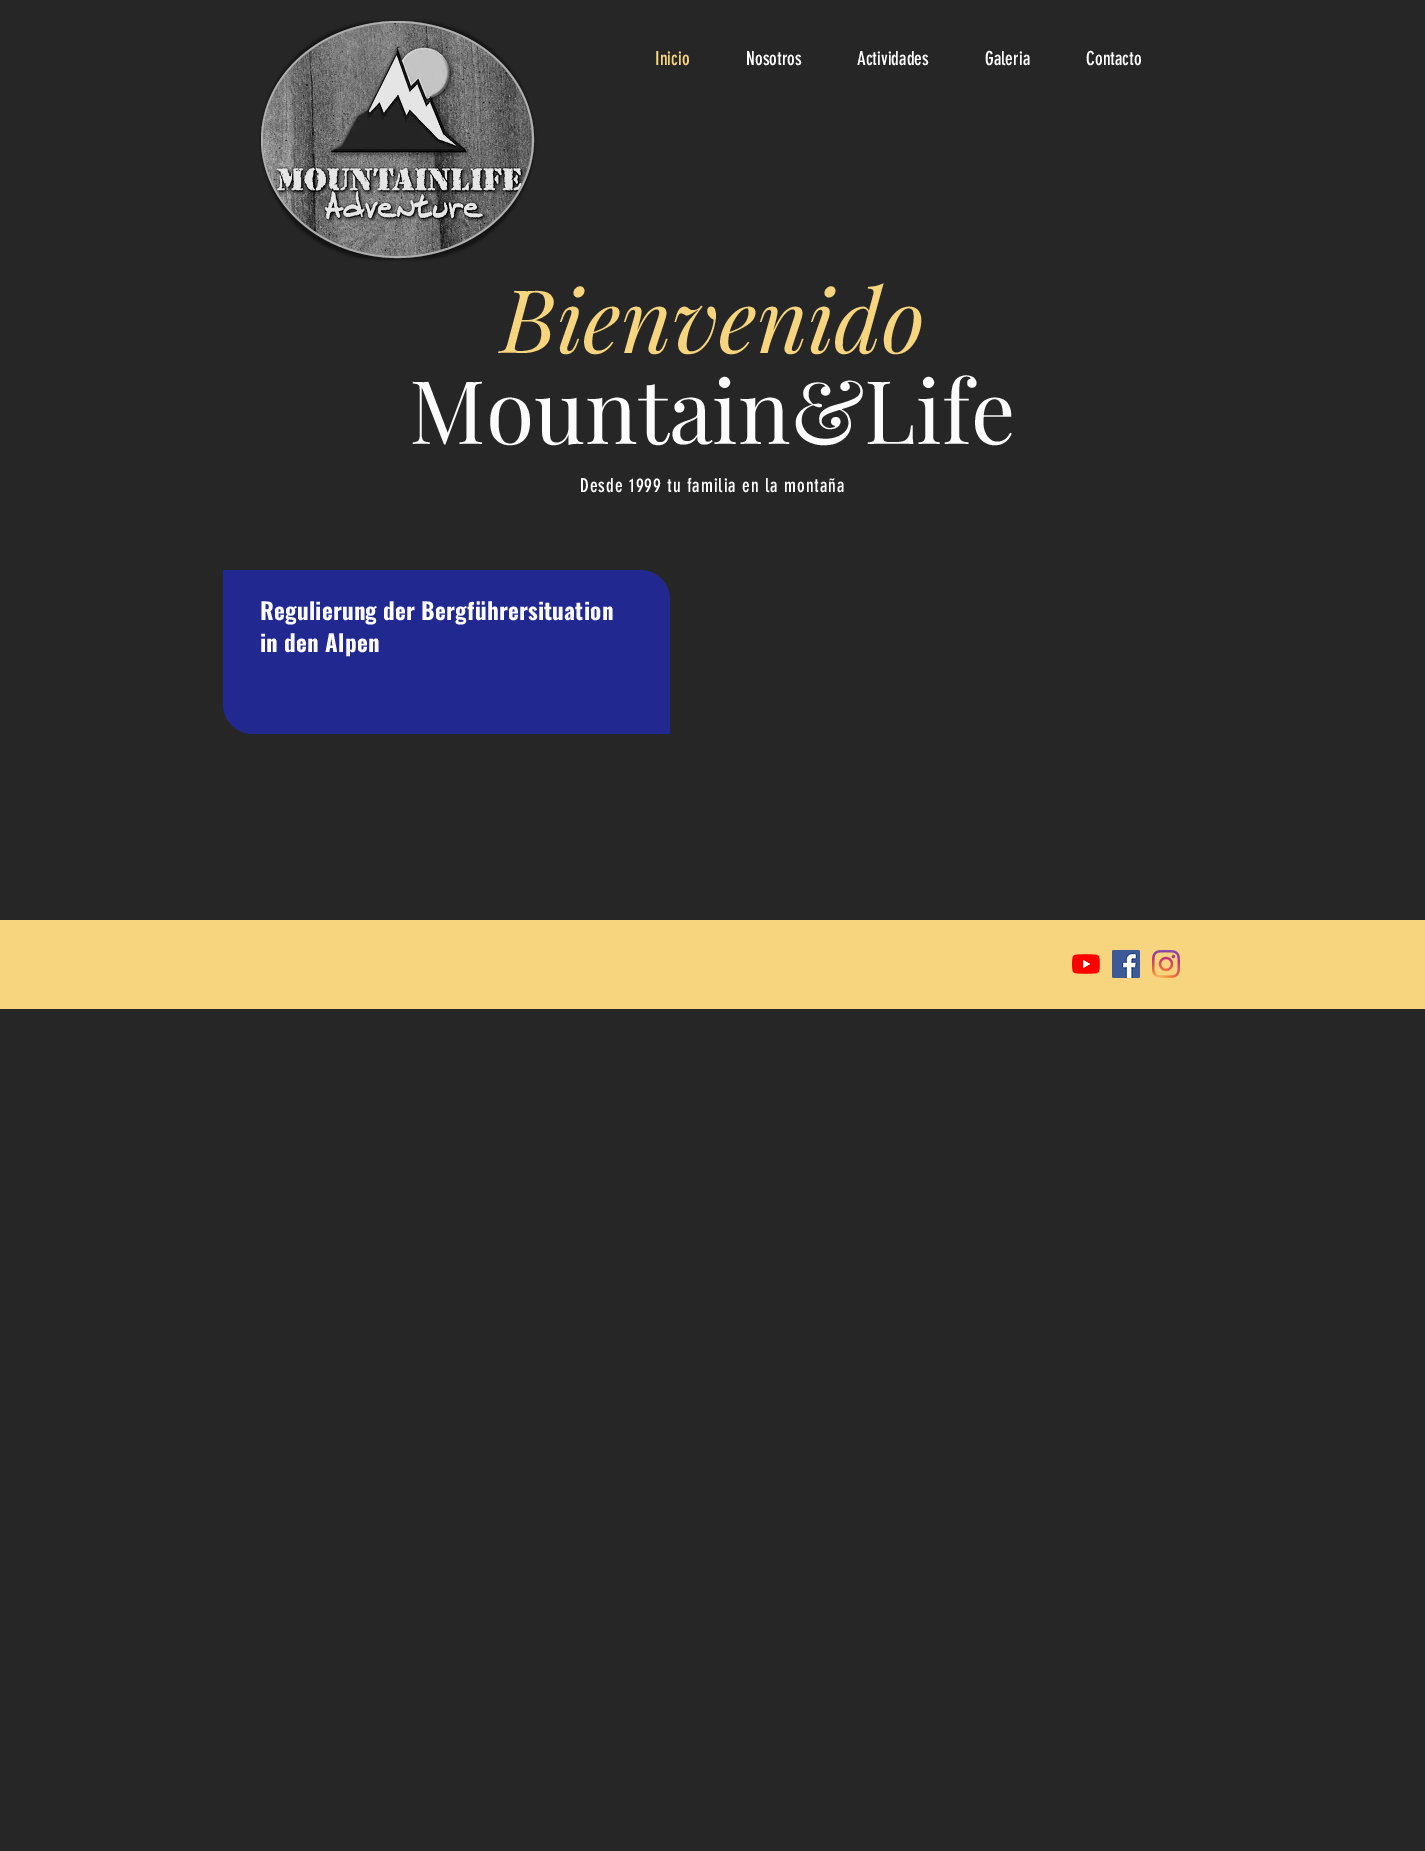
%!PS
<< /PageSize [1425 1851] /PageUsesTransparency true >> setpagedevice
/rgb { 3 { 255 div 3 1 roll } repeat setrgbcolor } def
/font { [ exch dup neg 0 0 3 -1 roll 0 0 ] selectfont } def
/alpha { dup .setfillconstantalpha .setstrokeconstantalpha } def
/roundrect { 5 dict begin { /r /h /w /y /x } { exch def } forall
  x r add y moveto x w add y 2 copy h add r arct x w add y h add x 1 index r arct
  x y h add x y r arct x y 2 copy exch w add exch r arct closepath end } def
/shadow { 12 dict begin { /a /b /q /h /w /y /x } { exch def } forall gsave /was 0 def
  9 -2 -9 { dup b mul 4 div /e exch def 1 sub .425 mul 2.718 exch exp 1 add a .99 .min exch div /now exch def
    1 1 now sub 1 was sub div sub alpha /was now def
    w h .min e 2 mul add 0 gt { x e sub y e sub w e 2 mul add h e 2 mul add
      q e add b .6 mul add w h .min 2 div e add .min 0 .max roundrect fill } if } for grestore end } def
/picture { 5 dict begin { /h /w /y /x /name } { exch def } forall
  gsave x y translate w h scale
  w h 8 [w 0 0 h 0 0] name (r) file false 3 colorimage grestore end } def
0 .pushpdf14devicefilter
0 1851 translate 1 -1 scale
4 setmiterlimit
38 38 38 rgb
0 0 1425 1851 rectfill
gsave
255 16 moveto 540 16 lineto 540 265 lineto 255 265 lineto closepath 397.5 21 moveto 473 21 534 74 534 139.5 curveto 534 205 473 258 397.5 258 curveto 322 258 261 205 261 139.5 curveto 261 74 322 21 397.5 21 curveto closepath eoclip newpath
0 0 0 rgb
261 22 273 237 118.5 1.5 0.5 shadow
grestore
0.4 alpha
252 252 252 rgb
397.5 21 moveto 473 21 534 74 534 139.5 curveto 534 205 473 258 397.5 258 curveto 322 258 261 205 261 139.5 curveto 261 74 322 21 397.5 21 curveto closepath fill
2 setlinewidth
397.5 22 moveto 472.5 22 533 74.5 533 139.5 curveto 533 204.5 472.5 257 397.5 257 curveto 322.5 257 262 204.5 262 139.5 curveto 262 74.5 322.5 22 397.5 22 curveto closepath stroke
1 alpha
(img/1.rgb) 263 23 269 233 picture
33 41 145 rgb
223 570 moveto 640 570 lineto 656.5 570 670 583.5 670 600 curveto 670 734 lineto 253 734 lineto 236.5 734 223 720.5 223 704 curveto closepath fill
247 213 127 rgb
0 920 1425 89 rectfill
(img/2.rgb) 1072 954 28 20 picture
(img/3.rgb) 1112 950 28 28 picture
(img/4.rgb) 1152 950 28 28 picture
/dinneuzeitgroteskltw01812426-Regular 19 font
655 65 moveto (Inicio) show
252 252 252 rgb
[
  [(Nosotros) 746 65]
  [(Actividades) 857 65]
  [(Galeria) 985 65]
  [(Contacto) 1086 65]
] { aload pop moveto show } forall
/PlayfairDisplay-Italic 88 font
247 213 127 rgb
501 353 moveto (Bienvenido) show
/PlayfairDisplay-Regular 88 font
252 252 252 rgb
409 444 moveto (Mountain&Life) show
/dinneuzeitgroteskltw01812426-Regular 19 font
580 492 moveto 0.95 0 (Desde 1999 tu familia en la montaña) ashow
/Oswald-Bold 23 font
260 620 moveto 0.25 0 (Regulierung der Bergführersituation) ashow
260 652 moveto 0.25 0 (in den Alpen) ashow
.poppdf14devicefilter showpage
